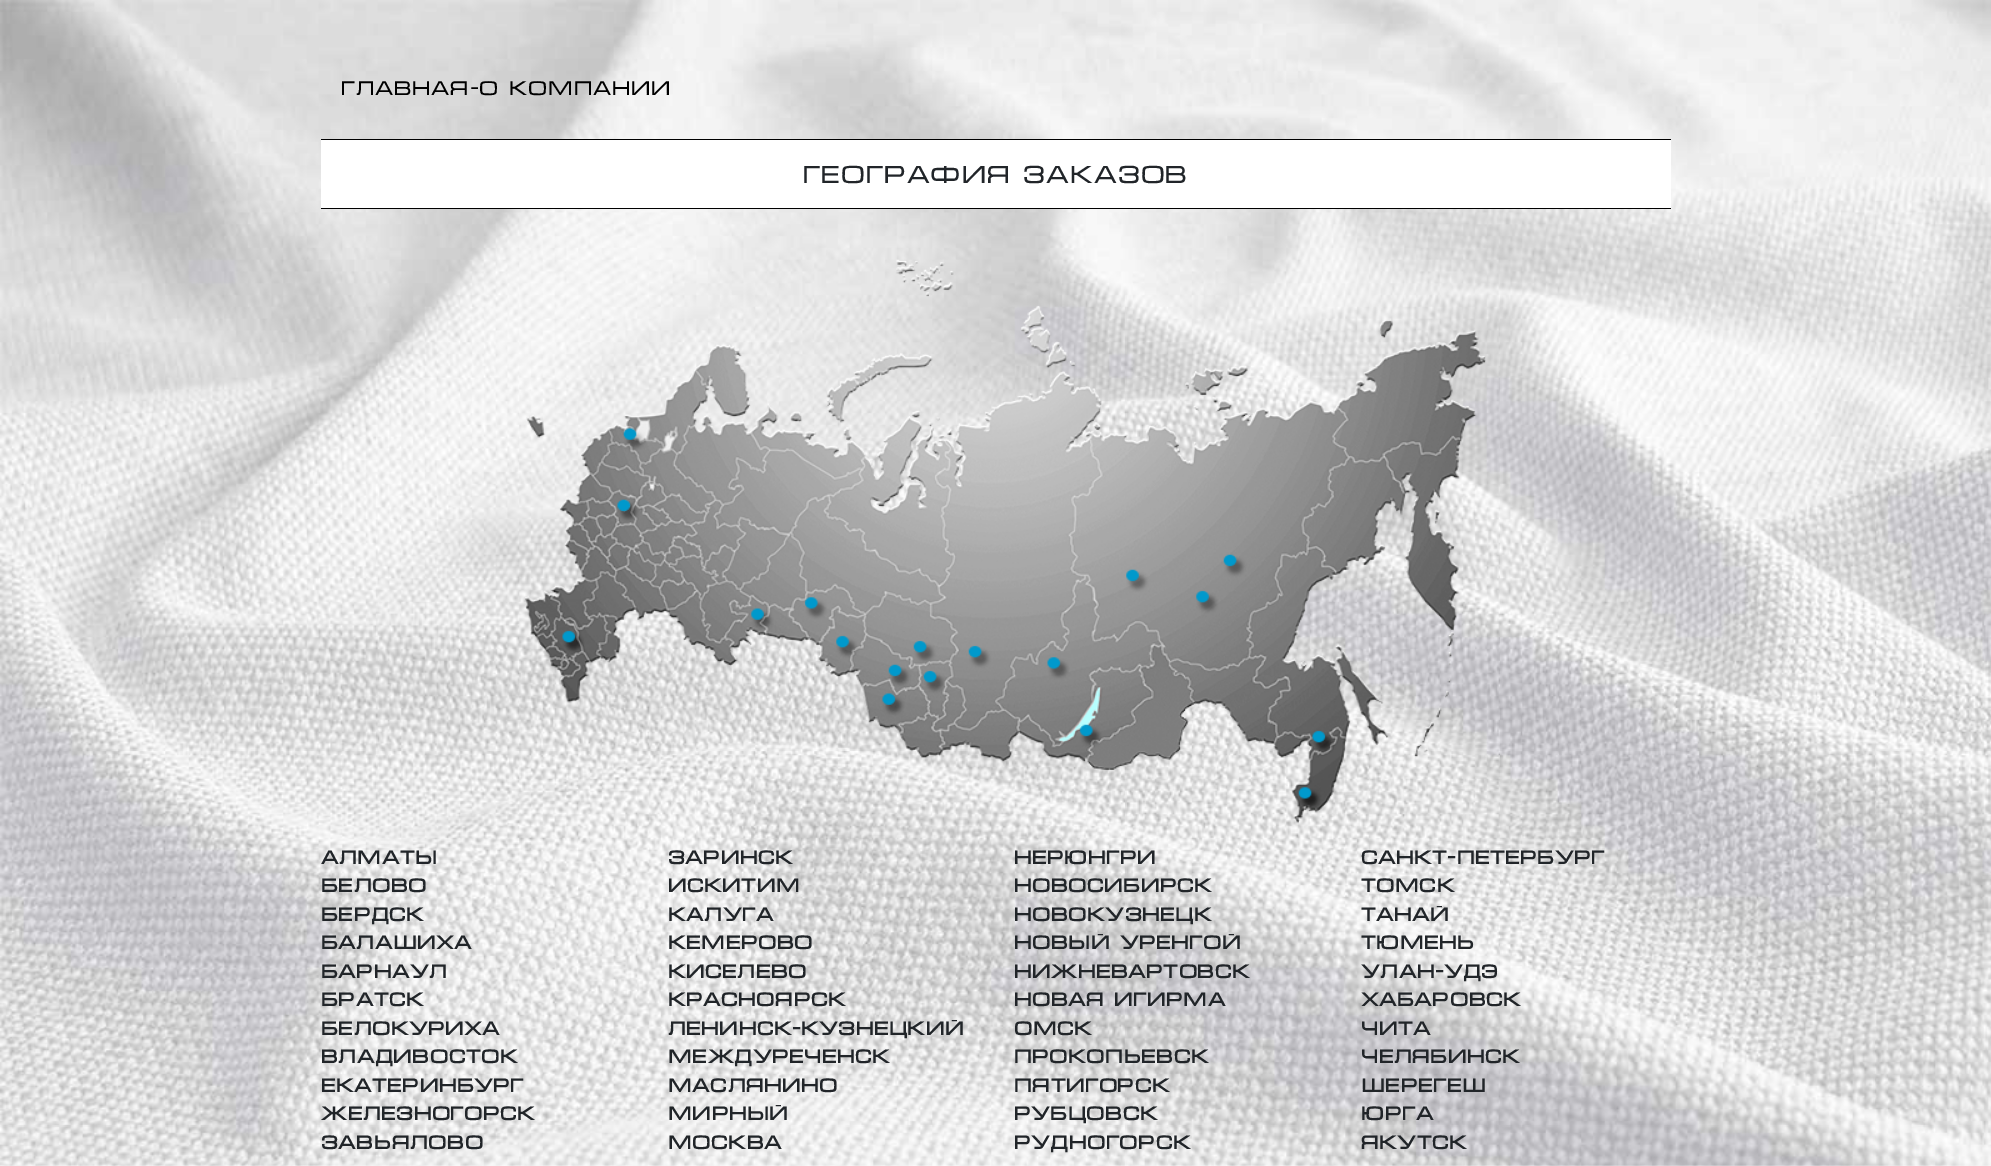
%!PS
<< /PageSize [1991 1166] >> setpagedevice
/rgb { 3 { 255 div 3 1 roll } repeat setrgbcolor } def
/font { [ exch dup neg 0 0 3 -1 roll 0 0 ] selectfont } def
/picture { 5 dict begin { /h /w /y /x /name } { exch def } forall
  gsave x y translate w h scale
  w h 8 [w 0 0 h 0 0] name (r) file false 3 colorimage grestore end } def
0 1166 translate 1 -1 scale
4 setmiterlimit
255 255 255 rgb
0 0 1991 1166 rectfill
(img/1.rgb) 0 0 1991 1166 picture
[
  [321 140 1350 68 255 255 255]
  [321 139 1350 1 0 0 0]
  [321 208 1350 1 0 0 0]
] { aload pop rgb rectfill } forall
(img/2.rgb) 525 259 961 565 picture
/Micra-Regular 20 font
341 95 moveto (Главная-О компании) show
/Micra-Regular 25 font
33 37 41 rgb
803 183 moveto (География заказов) show
/Micra-Bold 19 font
[
  [(Алматы) 321 864]
  [(Белово) 321 892]
  [(Бердск) 321 921]
  [(Балашиха) 321 949]
  [(Барнаул) 321 978]
  [(Братск) 321 1006]
  [(Белокуриха) 321 1035]
  [(Владивосток) 321 1063]
  [(Екатеринбург) 321 1092]
  [(Железногорск) 321 1120]
  [(Завьялово) 321 1149]
  [(Заринск) 668 864]
  [(Искитим) 668 892]
  [(Калуга) 668 921]
  [(Кемерово) 668 949]
  [(Киселево) 668 978]
  [(Красноярск) 668 1006]
  [(Ленинск-Кузнецкий) 668 1035]
  [(Междуреченск) 668 1063]
  [(Маслянино) 668 1092]
  [(Мирный) 668 1120]
  [(Москва) 668 1149]
  [(Нерюнгри) 1014 864]
  [(Новосибирск) 1014 892]
  [(Новокузнецк) 1014 921]
  [(Новый Уренгой) 1014 949]
  [(Нижневартовск) 1014 978]
  [(Новая Игирма) 1014 1006]
  [(Омск) 1014 1035]
  [(Прокопьевск) 1014 1063]
  [(Пятигорск) 1014 1092]
  [(Рубцовск) 1014 1120]
  [(Рудногорск) 1014 1149]
  [(Санкт-Петербург) 1361 864]
  [(Томск) 1361 892]
  [(Танай) 1361 921]
  [(Тюмень) 1361 949]
  [(Улан-удэ) 1361 978]
  [(Хабаровск) 1361 1006]
  [(Чита) 1361 1035]
  [(Челябинск) 1361 1063]
  [(Шерегеш) 1361 1092]
  [(Юрга) 1361 1120]
  [(Якутск) 1361 1149]
] { aload pop moveto show } forall
showpage
